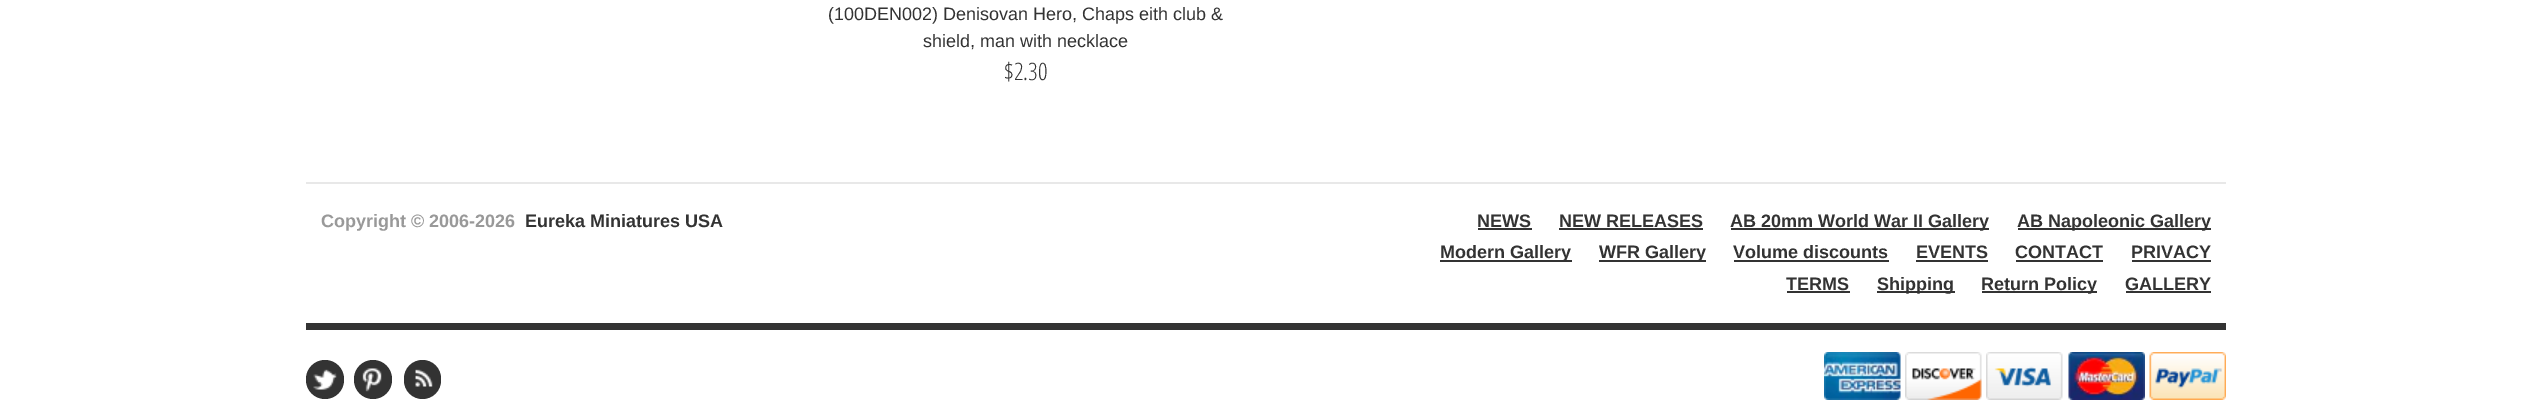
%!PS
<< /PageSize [2532 402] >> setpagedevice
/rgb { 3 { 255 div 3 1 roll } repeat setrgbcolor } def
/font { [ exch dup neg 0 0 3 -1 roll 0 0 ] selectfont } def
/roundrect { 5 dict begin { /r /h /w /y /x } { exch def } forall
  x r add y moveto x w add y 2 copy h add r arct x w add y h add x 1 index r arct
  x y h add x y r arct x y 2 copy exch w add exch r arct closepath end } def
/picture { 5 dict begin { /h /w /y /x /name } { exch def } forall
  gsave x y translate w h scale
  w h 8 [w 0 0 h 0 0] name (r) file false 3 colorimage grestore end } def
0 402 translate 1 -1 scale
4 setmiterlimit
255 255 255 rgb
0 0 2532 402 rectfill
[
  [306 323 1920 7 51 51 51]
  [306 182 1920 2 232 232 232]
  [1478 228 54 2 51 51 51]
  [1559 228 144 2 51 51 51]
  [1731 228 258 2 51 51 51]
  [2018 228 193 2 51 51 51]
  [1440 260 132 2 51 51 51]
  [1599 260 107 2 51 51 51]
  [1734 260 155 2 51 51 51]
  [1916 260 72 2 51 51 51]
  [2016 260 87 2 51 51 51]
  [2132 260 79 2 51 51 51]
  [1787 291 63 2 51 51 51]
  [1877 291 78 2 51 51 51]
  [1982 291 115 2 51 51 51]
  [2126 291 85 2 51 51 51]
] { aload pop rgb rectfill } forall
306 360 38 39 19 roundrect fill
(img/1.rgb) 313 369 24 21 picture
354 360 38 39 19 roundrect fill
(img/2.rgb) 362 368 20 24 picture
404 360 37 39 18.5 roundrect fill
(img/3.rgb) 415 369 18 18 picture
(img/4.rgb) 1824 352 77 48 picture
(img/5.rgb) 1905 352 77 48 picture
(img/6.rgb) 1986 352 77 48 picture
(img/7.rgb) 2068 352 77 48 picture
(img/8.rgb) 2149 352 77 48 picture
/LiberationSans-Regular 18 font
828 20 moveto (\(100DEN002\) Denisovan Hero, Chaps eith club &) show
923 47 moveto (shield, man with necklace) show
/OpenSansCondensed-Light 24 font
1004 80 moveto ($2.30) show
/LiberationSans-Bold 18 font
153 153 153 rgb
321 227 moveto (Copyright © 2006-2026) show
51 51 51 rgb
[
  [(Eureka Miniatures USA) 525 227]
  [(NEWS) 1477 227]
  [(NEW RELEASES) 1559 227]
  [(AB 20mm World War II Gallery) 1730 227]
  [(AB Napoleonic Gallery) 2017 227]
  [(Modern Gallery) 1440 258]
  [(WFR Gallery) 1599 258]
  [(Volume discounts) 1733 258]
  [(EVENTS) 1916 258]
  [(CONTACT) 2015 258]
  [(PRIVACY) 2131 258]
  [(TERMS) 1786 290]
  [(Shipping) 1877 290]
  [(Return Policy) 1981 290]
  [(GALLERY) 2125 290]
] { aload pop moveto show } forall
showpage
